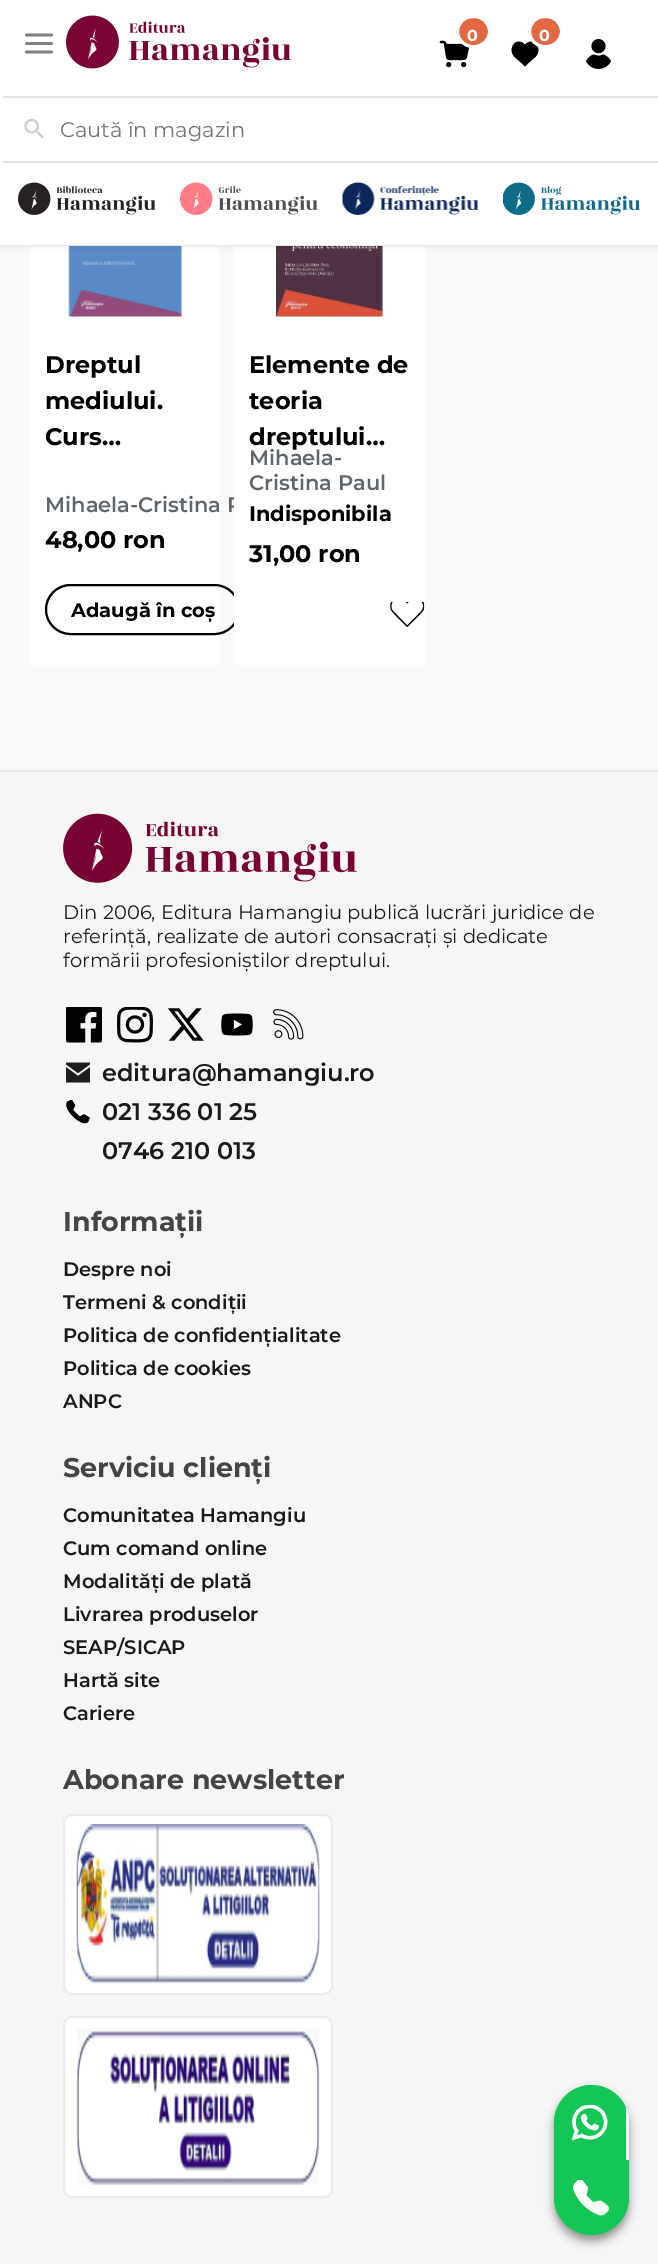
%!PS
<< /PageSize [658 2264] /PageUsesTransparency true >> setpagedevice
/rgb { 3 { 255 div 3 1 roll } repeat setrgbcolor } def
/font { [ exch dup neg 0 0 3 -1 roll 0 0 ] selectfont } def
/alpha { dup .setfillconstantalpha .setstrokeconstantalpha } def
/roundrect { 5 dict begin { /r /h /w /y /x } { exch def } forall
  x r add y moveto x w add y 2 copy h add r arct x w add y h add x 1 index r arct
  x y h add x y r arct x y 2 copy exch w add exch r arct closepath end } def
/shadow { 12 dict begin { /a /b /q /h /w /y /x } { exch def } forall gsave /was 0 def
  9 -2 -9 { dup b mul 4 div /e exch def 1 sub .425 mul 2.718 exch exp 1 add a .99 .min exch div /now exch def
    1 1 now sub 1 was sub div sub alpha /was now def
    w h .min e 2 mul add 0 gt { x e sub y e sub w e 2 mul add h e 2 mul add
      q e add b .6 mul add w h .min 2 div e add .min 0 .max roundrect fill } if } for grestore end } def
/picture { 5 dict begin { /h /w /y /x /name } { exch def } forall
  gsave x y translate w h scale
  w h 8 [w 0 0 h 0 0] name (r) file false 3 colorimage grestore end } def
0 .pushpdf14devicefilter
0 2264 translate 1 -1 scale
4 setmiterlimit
249 249 249 rgb
0 0 658 2264 rectfill
255 255 255 rgb
30 246 189 419 rectfill
(img/10.rgb) 68 246 114 71 picture
0 0 0 rgb
2 setlinewidth
46 585 193 49 24.5 roundrect stroke
246 246 246 rgb
0 772 658 1492 rectfill
232 232 232 rgb
0 770 658 2 rectfill
(img/13.rgb) 63 813 294 70 picture
(img/14.rgb) 66 1007 36 36 picture
(img/15.rgb) 117 1007 36 36 picture
(img/16.rgb) 168 1008 36 33 picture
(img/17.rgb) 221 1013 32 23 picture
(img/18.rgb) 273 1009 31 31 picture
(img/19.rgb) 66 1062 24 21 picture
(img/20.rgb) 66 1100 24 24 picture
255 255 255 rgb
64 1815 268 179 8 roundrect gsave fill grestore
236 236 236 rgb
stroke
(img/21.rgb) 76 1824 244 160 picture
255 255 255 rgb
64 2017 268 180 8 roundrect gsave fill grestore
236 236 236 rgb
stroke
(img/22.rgb) 76 2028 244 158 picture
0 0 0 rgb
554 2091 75 150 37.5 4.5 0.4 shadow
19 198 86 rgb
554 2085 75 150 37.5 roundrect fill
gsave
554 2085 75 150 37.5 roundrect clip newpath
255 255 255 rgb
626 2108 3 52 rectfill
grestore
(img/23.rgb) 572 2105 36 36 picture
(img/24.rgb) 573 2180 36 36 picture
/Montserrat-Bold 24 font
0 0 0 rgb
[
  [(Dreptul) 45 373]
  [(mediului.) 45 409]
  [(Curs…) 45 445]
] { aload pop moveto show } forall
/Montserrat-SemiBold 21 font
95 102 107 rgb
45 512 moveto (Mihaela-Cristina P) show
/Montserrat-Bold 24 font
0 0 0 rgb
45 548 moveto (48,00 ron) show
/Montserrat-Bold 19.5 font
71 617 moveto (Adaugă în coș) show
255 255 255 rgb
234 246 191 419 rectfill
(img/11.rgb) 276 246 107 71 picture
0 0 0 rgb
0 2 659 246 0 2 0.05 shadow
255 255 255 rgb
0 0 658 245 rectfill
(img/4.rgb) 586 39 25 30 picture
(img/3.rgb) 511 41 28 26 picture
227 103 67 rgb
529.5 16.5 32 30 15 roundrect gsave fill grestore
255 255 255 rgb
3 setlinewidth
stroke
/Montserrat-Bold 16 font
539 41 moveto (0) show
(img/2.rgb) 439 40 31 28 picture
227 103 67 rgb
457.5 16.5 32 30 15 roundrect gsave fill grestore
255 255 255 rgb
stroke
467 41 moveto (0) show
(img/1.rgb) 66 15 225 54 picture
128 128 128 rgb
2.8 setlinewidth
1 setlinecap
26.5 35 moveto 51.5 35 lineto 26.5 43.5 moveto 51.5 43.5 lineto 26.5 52 moveto 51.5 52 lineto stroke
(img/9.rgb) 503 182 138 33 picture
(img/8.rgb) 342 182 137 33 picture
(img/7.rgb) 180 182 138 33 picture
(img/6.rgb) 18 182 138 33 picture
(img/5.rgb) 24 118 20 21 picture
/Montserrat-Regular 21 font
117 117 117 rgb
60 137 moveto (Caută în magazin) show
[
  [3 161 655 2 229 229 229]
  [3 96 655 2 229 229 229]
  [0 245 658 1 230 230 230]
] { aload pop rgb rectfill } forall
/Montserrat-Bold 24 font
0 0 0 rgb
[
  [(Elemente de) 249 373]
  [(teoria) 249 409]
  [(dreptului…) 249 445]
] { aload pop moveto show } forall
/Montserrat-SemiBold 21 font
95 102 107 rgb
249 465 moveto (Mihaela-) show
249 490 moveto (Cristina Paul) show
/Montserrat-Bold 21 font
0 0 0 rgb
249 521 moveto (Indisponibila) show
/Montserrat-Bold 24 font
249 562 moveto (31,00 ron) show
(img/12.rgb) 390 602 35 25 picture
/Montserrat-Regular 19.5 font
26 26 26 rgb
[
  [(Din 2006, Editura Hamangiu publică lucrări juridice de) 63 919]
  [(referință, realizate de autori consacrați și dedicate) 63 943]
  [(formării profesioniștilor dreptului.) 63 967]
] { aload pop moveto show } forall
/Montserrat-SemiBold 24 font
[
  [(editura@hamangiu.ro) 102 1081]
  [(021 336 01 25) 102 1120]
  [(0746 210 013) 102 1159]
] { aload pop moveto show } forall
/Montserrat-Bold 27 font
68 68 68 rgb
63 1231 moveto (Informații) show
/Montserrat-SemiBold 19.5 font
26 26 26 rgb
[
  [(Despre noi) 63 1276]
  [(Termeni & condiții) 63 1309]
  [(Politica de confidențialitate) 63 1342]
  [(Politica de cookies) 63 1375]
  [(ANPC) 63 1408]
] { aload pop moveto show } forall
/Montserrat-Bold 27 font
68 68 68 rgb
63 1477 moveto (Serviciu clienți) show
/Montserrat-SemiBold 19.5 font
26 26 26 rgb
[
  [(Comunitatea Hamangiu) 63 1522]
  [(Cum comand online) 63 1555]
  [(Modalități de plată) 63 1588]
  [(Livrarea produselor) 63 1621]
  [(SEAP/SICAP) 63 1654]
  [(Hartă site) 63 1687]
  [(Cariere) 63 1720]
] { aload pop moveto show } forall
/Montserrat-Bold 27 font
68 68 68 rgb
63 1789 moveto (Abonare newsletter) show
.poppdf14devicefilter showpage
